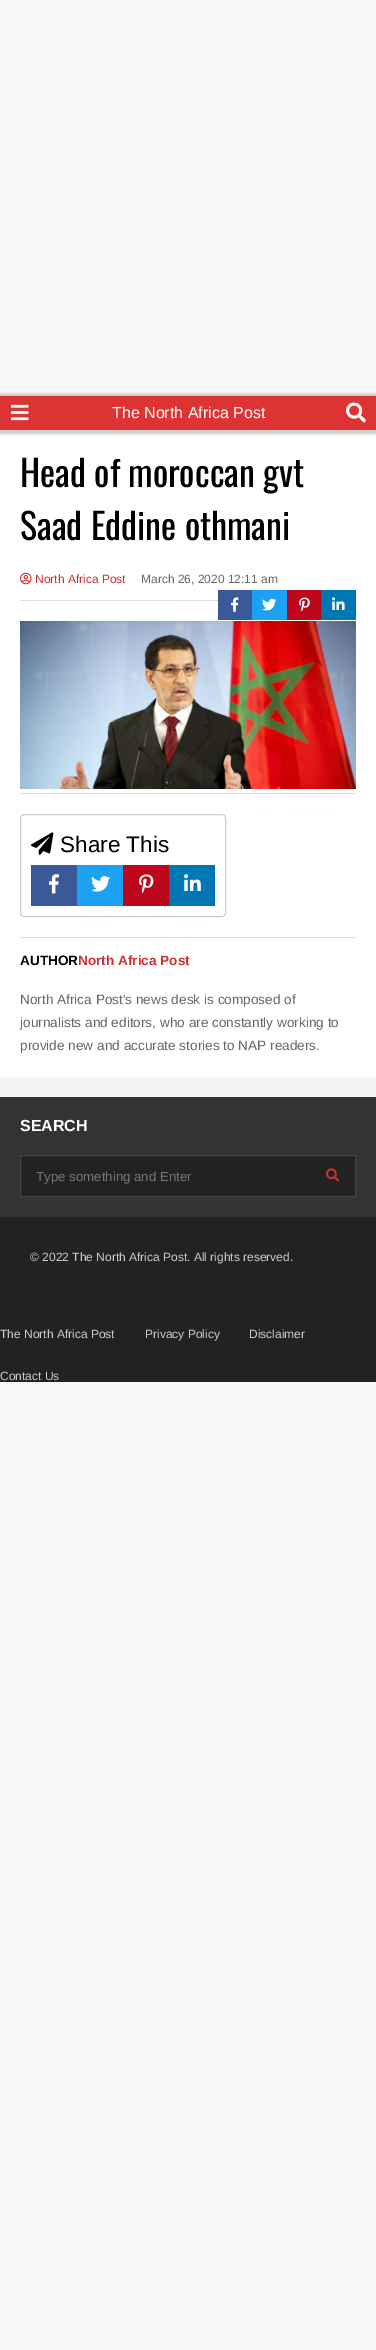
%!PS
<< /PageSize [376 2350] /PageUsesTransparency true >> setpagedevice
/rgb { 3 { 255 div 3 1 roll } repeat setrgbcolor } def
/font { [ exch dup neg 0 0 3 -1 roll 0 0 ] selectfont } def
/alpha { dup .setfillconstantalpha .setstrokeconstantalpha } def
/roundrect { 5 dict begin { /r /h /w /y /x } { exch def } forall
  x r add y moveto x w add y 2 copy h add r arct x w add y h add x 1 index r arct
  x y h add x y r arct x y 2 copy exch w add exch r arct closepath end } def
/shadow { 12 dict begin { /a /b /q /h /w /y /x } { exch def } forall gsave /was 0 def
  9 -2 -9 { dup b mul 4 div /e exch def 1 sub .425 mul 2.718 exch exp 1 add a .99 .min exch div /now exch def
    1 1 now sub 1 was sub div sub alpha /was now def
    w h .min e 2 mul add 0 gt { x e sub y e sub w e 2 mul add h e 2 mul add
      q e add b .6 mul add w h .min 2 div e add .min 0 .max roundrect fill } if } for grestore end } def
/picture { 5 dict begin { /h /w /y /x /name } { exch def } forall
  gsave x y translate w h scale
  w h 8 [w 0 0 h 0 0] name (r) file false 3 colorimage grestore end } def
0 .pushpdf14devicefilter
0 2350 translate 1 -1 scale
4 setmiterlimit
248 248 248 rgb
0 0 376 2350 rectfill
255 255 255 rgb
0 430 376 647 rectfill
0 0 0 rgb
-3 394 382 40 0 1.5 0.2 shadow
221 51 51 rgb
0 396 376 34 rectfill
(img/1.rgb) 11 404 18 17 picture
(img/2.rgb) 346 402 20 21 picture
221 221 221 rgb
20 600 198 1 rectfill
(img/3.rgb) 20 572 12 13 picture
59 89 152 rgb
218 590 34 30 rectfill
(img/4.rgb) 231 597 8 15 picture
29 161 242 rgb
252 590 35 30 rectfill
(img/5.rgb) 262 598 15 13 picture
189 8 28 rgb
287 590 34 30 rectfill
(img/6.rgb) 299 597 11 15 picture
0 119 181 rgb
321 590 35 30 rectfill
(img/7.rgb) 332 597 13 13 picture
221 221 221 rgb
20 793 336 1 rectfill
(img/8.rgb) 20 621 336 168 picture
204 204 204 rgb
20.5 814.5 205 102 3.5 roundrect stroke
(img/9.rgb) 31 832 23 23 picture
59 89 152 rgb
31 865 46 41 rectfill
(img/10.rgb) 49 874 10 20 picture
29 161 242 rgb
77 865 46 41 rectfill
(img/11.rgb) 91 876 19 16 picture
189 8 28 rgb
123 865 46 41 rectfill
(img/12.rgb) 139 874 15 20 picture
0 119 181 rgb
169 865 46 41 rectfill
(img/13.rgb) 184 874 17 17 picture
[
  [20 937 336 1 221 221 221]
  [0 1077 376 20 244 244 244]
  [0 1097 376 120 51 51 51]
] { aload pop rgb rectfill } forall
34 34 34 rgb
20.5 1155.5 moveto 355.5 1155.5 lineto 355.5 1196.5 lineto 20.5 1196.5 lineto closepath gsave fill grestore
68 68 68 rgb
stroke
(img/14.rgb) 326 1168 14 14 picture
34 34 34 rgb
0 1217 376 165 rectfill
/LiberationSans-Regular 16 font
255 255 255 rgb
112 418 moveto (The North Africa Post) show
/Oswald-Regular 36 font
0 0 0 rgb
20 487 moveto (Head of moroccan gvt) show
20 540 moveto (Saad Eddine othmani) show
/LiberationSans-Regular 12 font
209 47 47 rgb
35 583 moveto (North Africa Post) show
102 102 102 rgb
141 583 moveto (March 26, 2020 12:11 am) show
/LiberationSans-Regular 22.5 font
0 0 0 rgb
60 852 moveto (Share This) show
/LiberationSans-Bold 13.6 font
20 965 moveto (AUTHOR) show
209 47 47 rgb
78 965 moveto (North Africa Post) show
/LiberationSans-Regular 13.6 font
102 102 102 rgb
[
  [(North Africa Post's news desk is composed of) 20 1004]
  [(journalists and editors, who are constantly working to) 20 1027]
  [(provide new and accurate stories to NAP readers.) 20 1050]
] { aload pop moveto show } forall
/LiberationSans-Bold 16 font
255 255 255 rgb
20 1131 moveto (SEARCH) show
/LiberationSans-Regular 13.25 font
117 117 117 rgb
36 1181 moveto (Type something and Enter) show
/LiberationSans-Regular 12 font
204 204 204 rgb
[
  [(© 2022 The North Africa Post. All rights reserved.) 30 1261]
  [(The North Africa Post) 0 1338]
  [(Privacy Policy) 145 1338]
  [(Disclaimer) 249 1338]
  [(Contact Us) 0 1380]
] { aload pop moveto show } forall
.poppdf14devicefilter showpage
